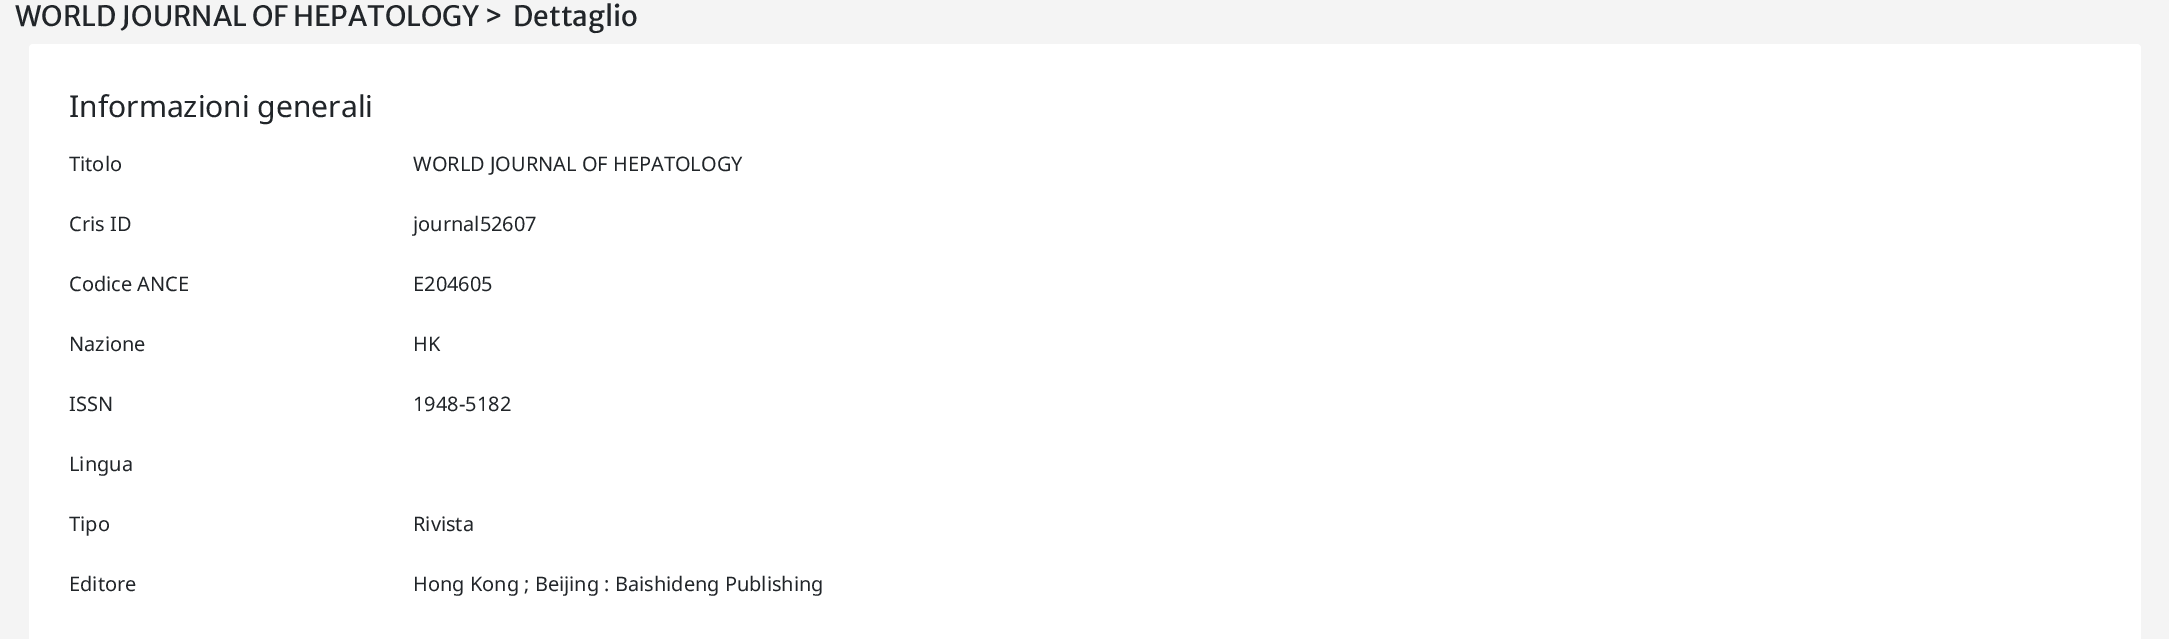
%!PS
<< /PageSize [2169 639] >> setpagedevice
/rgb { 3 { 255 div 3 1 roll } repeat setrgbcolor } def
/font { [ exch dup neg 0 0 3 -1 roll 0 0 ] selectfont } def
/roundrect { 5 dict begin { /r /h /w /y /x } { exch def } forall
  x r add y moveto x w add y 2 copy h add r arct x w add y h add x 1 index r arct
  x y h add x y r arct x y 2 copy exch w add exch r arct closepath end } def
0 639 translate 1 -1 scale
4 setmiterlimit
244 244 244 rgb
0 0 2169 639 rectfill
255 255 255 rgb
29 44 2112 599 4 roundrect fill
/MerriweatherSans-Regular 28 font
33 37 41 rgb
15 26 moveto (WORLD JOURNAL OF HEPATOLOGY >  Dettaglio) show
/NotoSans-Regular 30 font
69 117 moveto (Informazioni generali) show
/NotoSans-Regular 20 font
[
  [(Titolo) 69 171]
  [(WORLD JOURNAL OF HEPATOLOGY) 413 171]
  [(Cris ID) 69 231]
  [(journal52607) 413 231]
  [(Codice ANCE) 69 291]
  [(E204605) 413 291]
  [(Nazione) 69 351]
  [(HK) 413 351]
  [(ISSN) 69 411]
  [(1948-5182) 413 411]
  [(Lingua) 69 471]
  [(Tipo) 69 531]
  [(Rivista) 413 531]
  [(Editore) 69 591]
  [(Hong Kong ; Beijing : Baishideng Publishing) 413 591]
] { aload pop moveto show } forall
showpage
